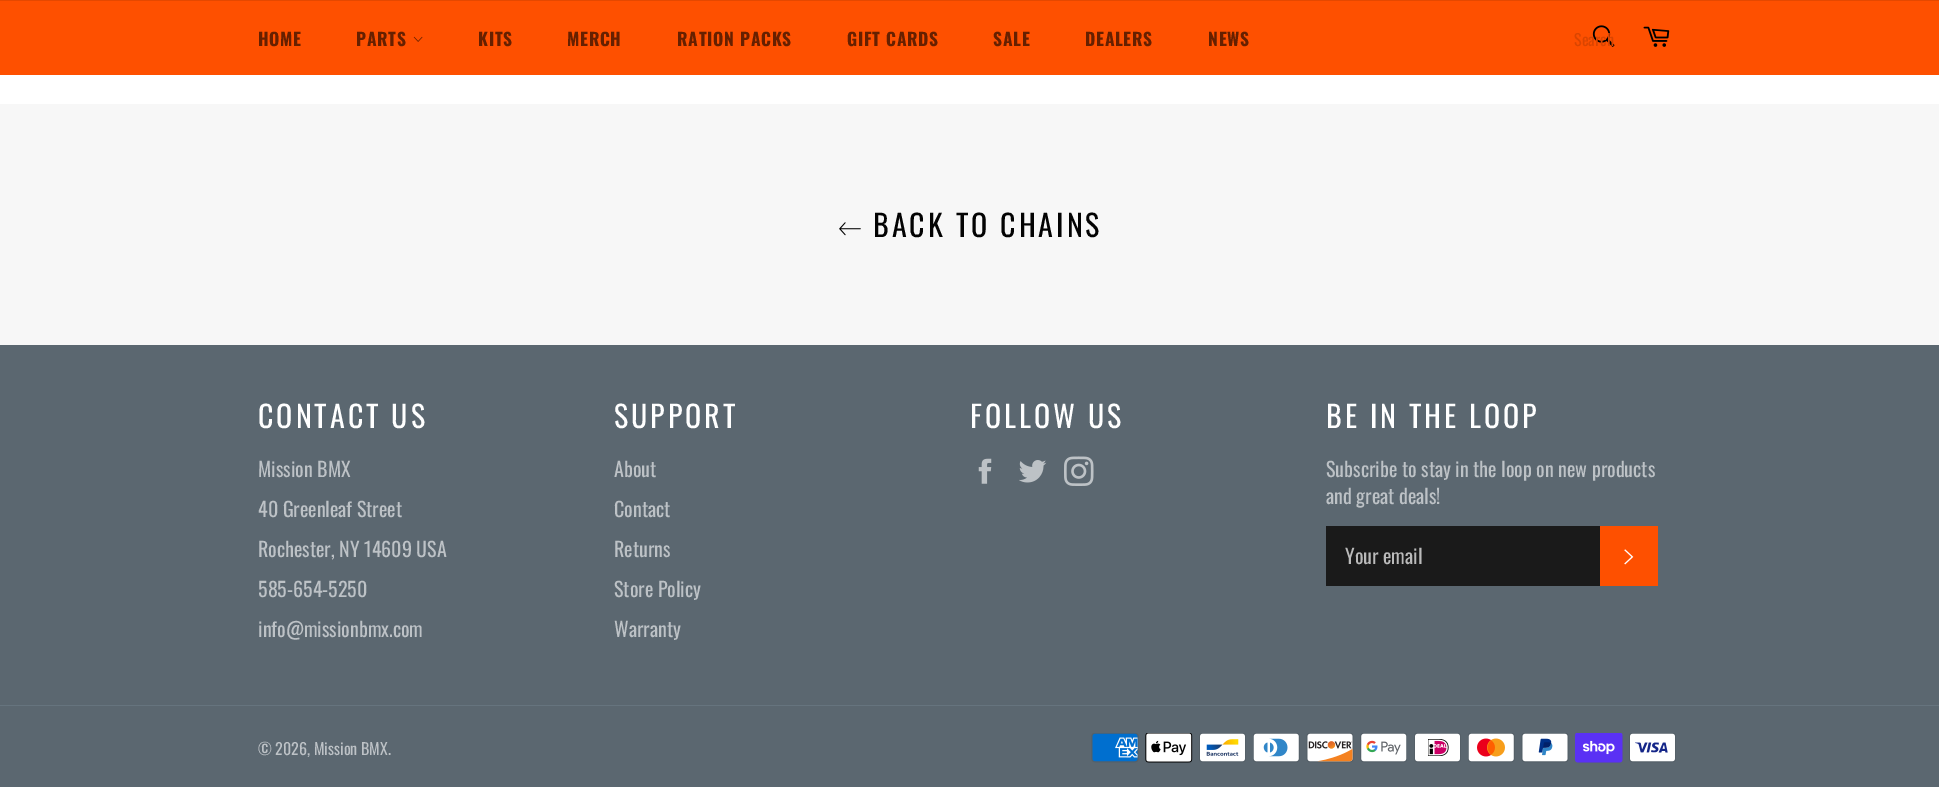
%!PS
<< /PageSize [1939 787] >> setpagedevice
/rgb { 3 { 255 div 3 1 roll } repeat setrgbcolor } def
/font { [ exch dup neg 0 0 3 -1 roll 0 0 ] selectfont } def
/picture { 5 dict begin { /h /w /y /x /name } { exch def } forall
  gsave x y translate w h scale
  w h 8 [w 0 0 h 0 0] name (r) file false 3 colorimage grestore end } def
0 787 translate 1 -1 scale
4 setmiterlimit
255 255 255 rgb
0 0 1939 787 rectfill
254 80 0 rgb
0 1 1939 74 rectfill
229 72 0 rgb
0 0 1939 1 rectfill
(img/1.rgb) 413 36 10 6 picture
(img/2.rgb) 1592 25 23 22 picture
(img/3.rgb) 1643 26 27 21 picture
247 247 247 rgb
0 104 1939 241 rectfill
(img/4.rgb) 839 222 22 14 picture
91 103 112 rgb
0 345 1939 442 rectfill
(img/5.rgb) 978 458 14 26 picture
(img/6.rgb) 1019 460 28 23 picture
(img/7.rgb) 1064 456 30 30 picture
26 26 26 rgb
1326 526 274 60 rectfill
254 80 0 rgb
1600 526 58 60 rectfill
(img/8.rgb) 1624 549 10 16 picture
102 116 126 rgb
0 705 1939 1 rectfill
(img/9.rgb) 1091 733 48 30 picture
(img/10.rgb) 1145 733 48 30 picture
(img/11.rgb) 1199 733 47 30 picture
(img/12.rgb) 1253 733 47 30 picture
(img/13.rgb) 1306 733 48 30 picture
(img/14.rgb) 1360 733 47 30 picture
(img/15.rgb) 1414 733 47 30 picture
(img/16.rgb) 1468 733 47 30 picture
(img/17.rgb) 1521 733 48 30 picture
(img/18.rgb) 1575 733 48 30 picture
(img/19.rgb) 1629 733 47 30 picture
/Oswald-Bold 17.5 font
102 32 0 rgb
258 46 moveto 0.75 0 (HOME) ashow
356 46 moveto 0.75 0 (PARTS) ashow
478 46 moveto 0.75 0 (KITS) ashow
567 46 moveto 0.75 0 (MERCH) ashow
677 46 moveto 0.75 0 (RATION PACKS) ashow
847 46 moveto 0.75 0 (GIFT CARDS) ashow
993 46 moveto 0.75 0 (SALE) ashow
1085 46 moveto 0.75 0 (DEALERS) ashow
1208 46 moveto 0.75 0 (NEWS) ashow
/Oswald-Regular 16 font
218 69 0 rgb
1574 46 moveto (Search) show
/Oswald-Regular 30 font
3 3 3 rgb
873 237 moveto 3 0 (BACK TO CHAINS) ashow
255 255 255 rgb
258 428 moveto 3 0 (CONTACT US) ashow
/Oswald-Regular 20 font
189 194 198 rgb
[
  [(Mission BMX) 258 477]
  [(40 Greenleaf Street) 258 517]
  [(Rochester, NY 14609 USA) 258 557]
  [(585-654-5250) 258 597]
  [(info@missionbmx.com) 258 637]
] { aload pop moveto show } forall
/Oswald-Regular 30 font
255 255 255 rgb
614 428 moveto 3 0 (SUPPORT) ashow
/Oswald-Regular 20 font
189 194 198 rgb
[
  [(About) 614 477]
  [(Contact) 614 517]
  [(Returns) 614 557]
  [(Store Policy) 614 597]
  [(Warranty) 614 637]
] { aload pop moveto show } forall
/Oswald-Regular 30 font
255 255 255 rgb
970 428 moveto 3 0 (FOLLOW US) ashow
1326 428 moveto 3 0 (BE IN THE LOOP) ashow
/Oswald-Regular 20 font
189 194 198 rgb
1326 477 moveto (Subscribe to stay in the loop on new products) show
1326 504 moveto (and great deals!) show
186 186 186 rgb
1345 564 moveto (Your email) show
/Oswald-Regular 16 font
189 194 198 rgb
258 755 moveto (© 2026, Mission BMX.) show
showpage
